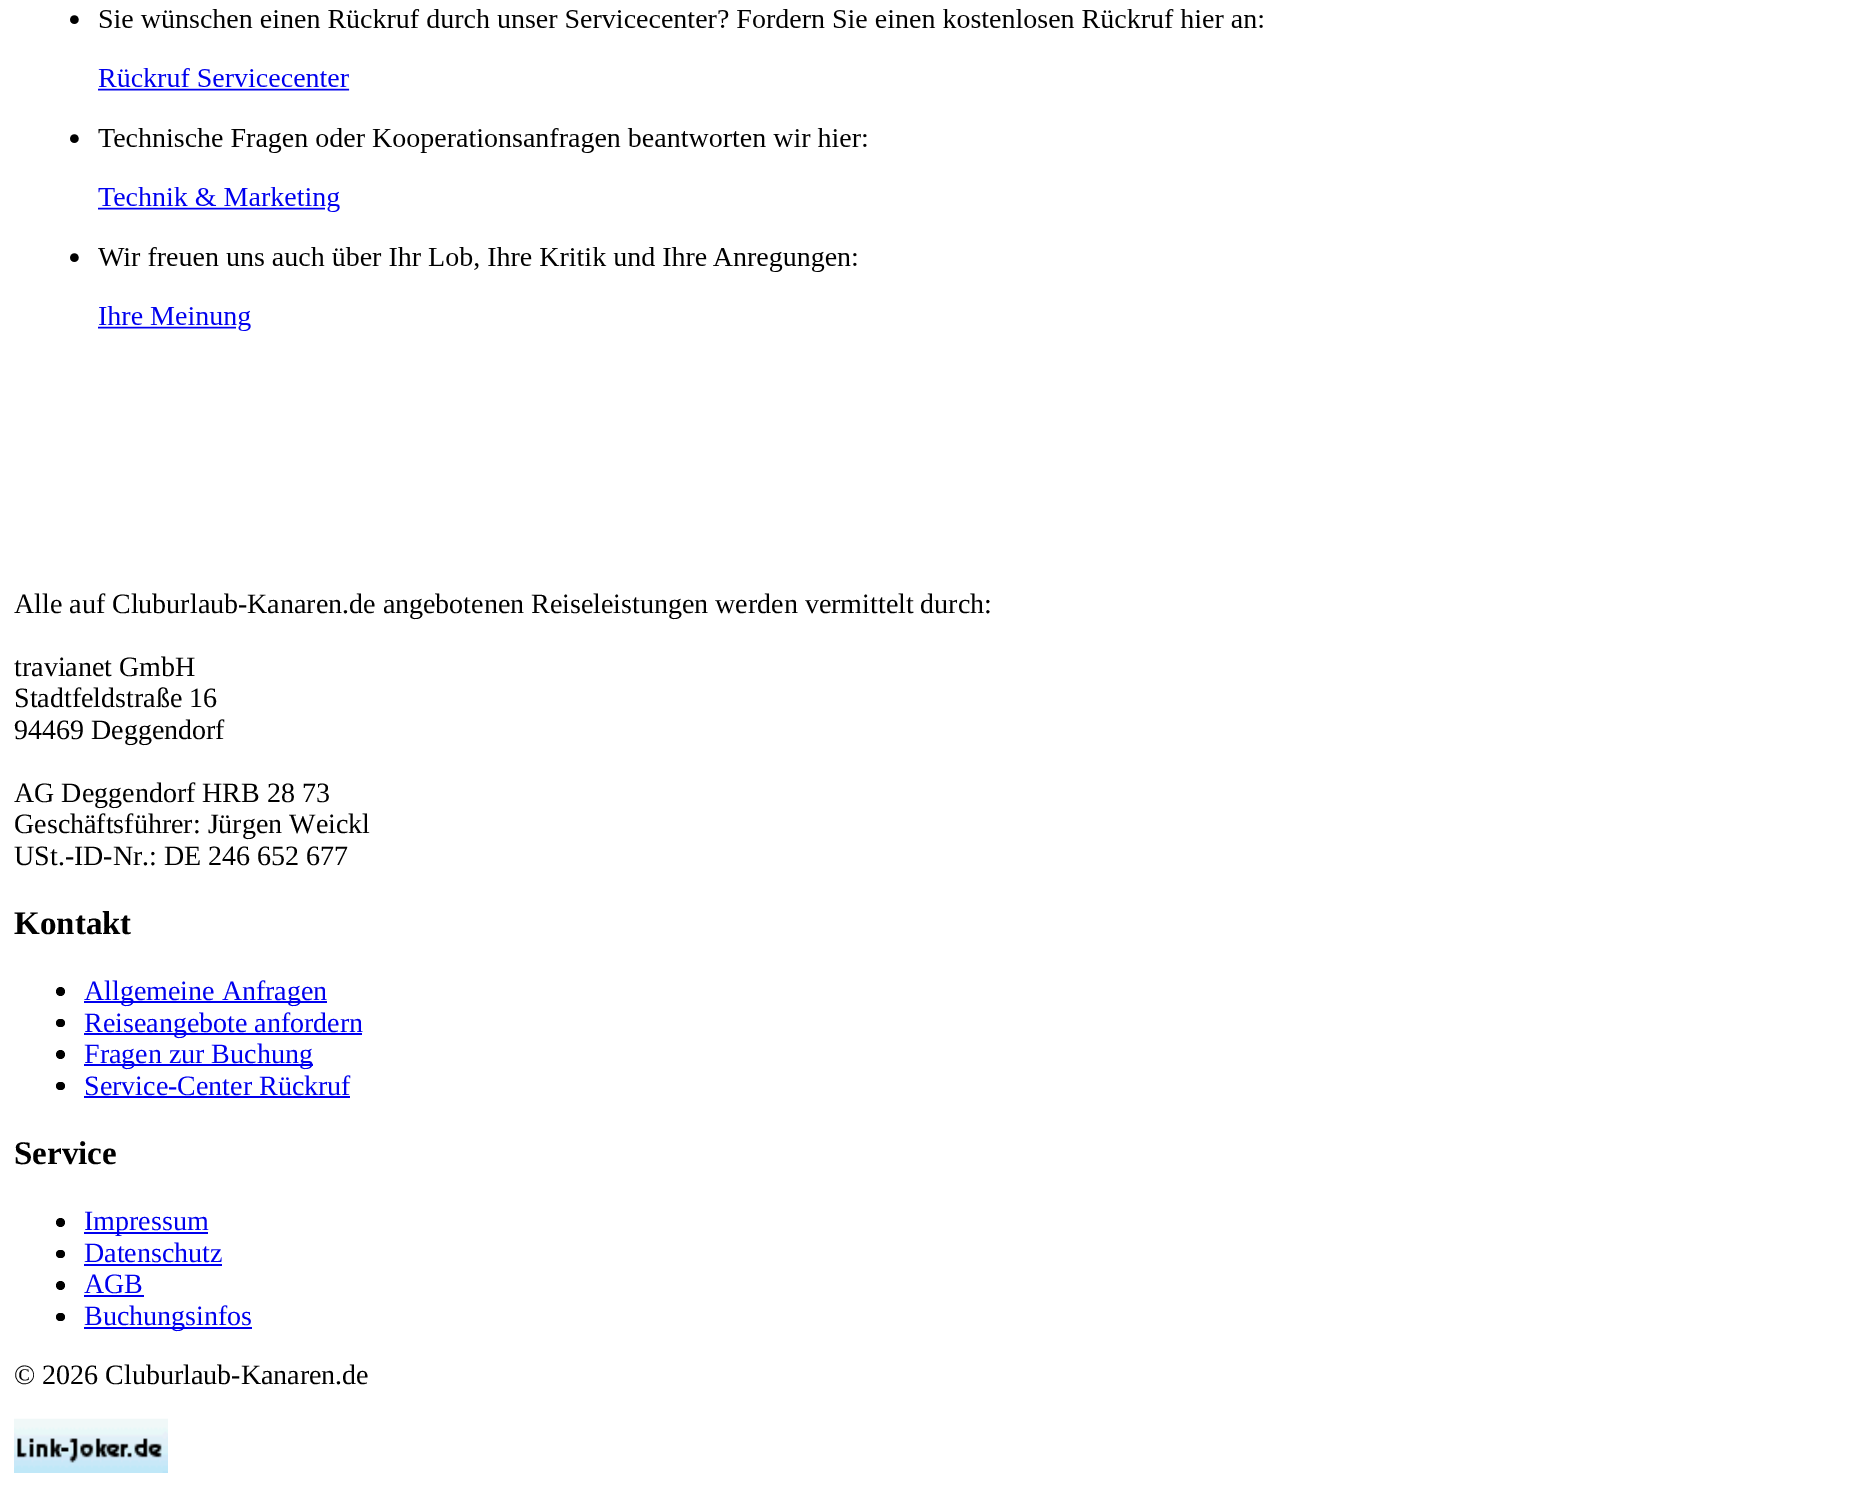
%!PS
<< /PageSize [1858 1508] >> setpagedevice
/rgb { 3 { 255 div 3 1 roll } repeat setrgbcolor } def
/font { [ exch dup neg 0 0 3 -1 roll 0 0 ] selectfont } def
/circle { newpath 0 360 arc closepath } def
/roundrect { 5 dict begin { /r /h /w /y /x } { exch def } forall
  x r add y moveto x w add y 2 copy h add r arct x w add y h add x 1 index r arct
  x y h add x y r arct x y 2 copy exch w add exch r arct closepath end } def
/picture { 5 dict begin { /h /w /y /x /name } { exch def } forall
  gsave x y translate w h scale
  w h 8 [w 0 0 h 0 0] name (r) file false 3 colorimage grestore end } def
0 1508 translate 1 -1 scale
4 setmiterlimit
255 255 255 rgb
0 0 1858 1508 rectfill
(img/1.rgb) 70 9 1193 322 picture
0 0 0 rgb
60.5 991.5 4.5 circle fill
0 0 238 rgb
84 1001 243 2 rectfill
0 0 0 rgb
56 1019 9 8 4 roundrect fill
0 0 238 rgb
84 1033 278 2 rectfill
0 0 0 rgb
60.5 1054.5 4.5 circle fill
0 0 238 rgb
84 1064 229 2 rectfill
0 0 0 rgb
56 1082 9 8 4 roundrect fill
0 0 238 rgb
84 1096 266 2 rectfill
0 0 0 rgb
60.5 1222.5 4.5 circle fill
0 0 238 rgb
84 1232 124 2 rectfill
0 0 0 rgb
56 1250 9 8 4 roundrect fill
0 0 238 rgb
84 1264 138 2 rectfill
0 0 0 rgb
60.5 1285.5 4.5 circle fill
0 0 238 rgb
84 1295 60 2 rectfill
0 0 0 rgb
56 1313 9 8 4 roundrect fill
0 0 238 rgb
84 1327 168 2 rectfill
(img/2.rgb) 14 1418 154 55 picture
/LiberationSerif-Regular 28 font
0 0 0 rgb
[
  [(Alle auf Cluburlaub-Kanaren.de angebotenen Reiseleistungen werden vermittelt durch:) 14 613]
  [(travianet GmbH) 14 676]
  [(Stadtfeldstraße 16) 14 707]
  [(94469 Deggendorf) 14 739]
  [(AG Deggendorf HRB 28 73) 14 802]
  [(Geschäftsführer: Jürgen Weickl) 14 833]
  [(USt.-ID-Nr.: DE 246 652 677) 14 865]
] { aload pop moveto show } forall
/LiberationSerif-Bold 33 font
14 934 moveto (Kontakt) show
/LiberationSerif-Regular 28 font
0 0 238 rgb
[
  [(Allgemeine Anfragen) 84 1000]
  [(Reiseangebote anfordern) 84 1032]
  [(Fragen zur Buchung) 84 1063]
  [(Service-Center Rückruf) 84 1095]
] { aload pop moveto show } forall
/LiberationSerif-Bold 33 font
0 0 0 rgb
14 1164 moveto (Service) show
/LiberationSerif-Regular 28 font
0 0 238 rgb
[
  [(Impressum) 84 1230]
  [(Datenschutz) 84 1262]
  [(AGB) 84 1293]
  [(Buchungsinfos) 84 1325]
] { aload pop moveto show } forall
0 0 0 rgb
14 1384 moveto (© 2026 Cluburlaub-Kanaren.de) show
showpage
